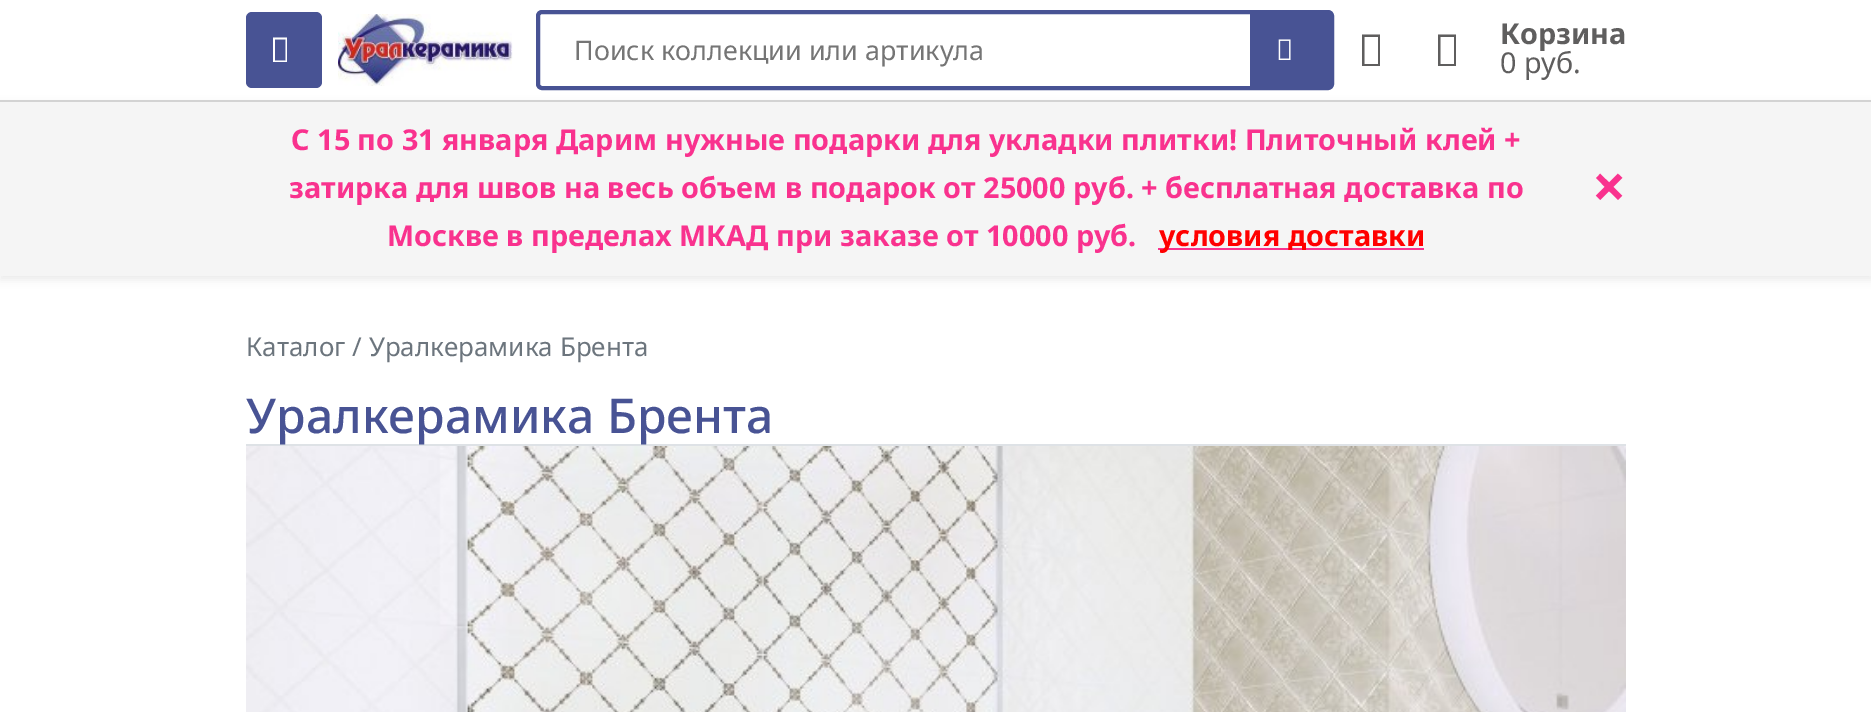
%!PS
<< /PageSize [1871 712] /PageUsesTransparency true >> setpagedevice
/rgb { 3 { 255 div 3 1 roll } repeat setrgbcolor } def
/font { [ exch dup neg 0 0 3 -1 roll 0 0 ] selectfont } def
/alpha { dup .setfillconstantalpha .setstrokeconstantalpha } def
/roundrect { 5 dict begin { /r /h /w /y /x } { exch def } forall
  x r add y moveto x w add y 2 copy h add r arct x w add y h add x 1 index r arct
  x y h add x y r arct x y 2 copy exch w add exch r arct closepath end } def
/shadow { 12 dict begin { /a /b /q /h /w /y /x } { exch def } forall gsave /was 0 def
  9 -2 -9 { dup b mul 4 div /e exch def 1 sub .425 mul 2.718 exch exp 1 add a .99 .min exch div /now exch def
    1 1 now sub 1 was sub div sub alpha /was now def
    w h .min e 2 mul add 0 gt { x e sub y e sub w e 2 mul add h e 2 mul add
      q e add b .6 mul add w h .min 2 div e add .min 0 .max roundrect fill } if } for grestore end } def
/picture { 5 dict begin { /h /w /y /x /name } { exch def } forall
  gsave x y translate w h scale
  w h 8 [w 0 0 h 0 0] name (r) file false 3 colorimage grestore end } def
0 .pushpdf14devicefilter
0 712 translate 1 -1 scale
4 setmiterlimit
255 255 255 rgb
0 0 1871 712 rectfill
0 0 0 rgb
0 104 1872 176 0 4 0.07 shadow
211 211 211 rgb
0 100 1871 2 rectfill
72 83 148 rgb
246 12 76 76 6 roundrect fill
255 255 255 rgb
273 62 moveto 273 37.5 lineto 287 37.5 lineto 287 62 lineto closepath 275 60.5 moveto 285.5 60.5 lineto 285.5 39.5 lineto 275 39.5 lineto closepath fill
(img/1.rgb) 338 14 175 72 picture
72 83 148 rgb
4 setlinewidth
538 12 794 76 4 roundrect stroke
1250 14 80 72 rectfill
(img/2.rgb) 1278 39 13 21 picture
95 94 94 rgb
1362 66 moveto 1362 34.5 lineto 1380 34.5 lineto 1380 66 lineto closepath 1364.5 64 moveto 1378 64 lineto 1378 37 lineto 1364.5 37 lineto closepath fill
1438 66 moveto 1438 34.5 lineto 1456 34.5 lineto 1456 66 lineto closepath 1440.5 64 moveto 1454 64 lineto 1454 37 lineto 1440.5 37 lineto closepath fill
[
  [0 102 1871 174 245 245 245]
  [1158 248 266 2 249 50 142]
  [246 444 1380 2 222 226 230]
] { aload pop rgb rectfill } forall
(img/3.rgb) 246 446 1380 266 picture
/NotoSans-Regular 26.9 font
117 117 117 rgb
574 60 moveto (Поиск коллекции или артикула) show
/NotoSans-Bold 28.8 font
95 94 94 rgb
1500 44 moveto (Корзина) show
/NotoSans-Regular 28.8 font
1500 73 moveto (0 руб.) show
/NotoSans-Bold 28.8 font
249 50 142 rgb
[
  [(С 15 по 31 января Дарим нужные подарки для укладки плитки! Плиточный клей +) 291 150]
  [(затирка для швов на весь объем) 289 198]
  [(в подарок от 25000 руб. + бесплатная доставка по) 785 198]
] { aload pop moveto show } forall
/NotoSans-Bold 60 font
1592 208 moveto (×) show
/NotoSans-Bold 28.8 font
387 246 moveto (Москве в пределах МКАД при заказе от 10000 руб.) show
255 0 0 rgb
1159 246 moveto (условия доставки) show
/NotoSans-Regular 26 font
108 117 125 rgb
246 356 moveto (Каталог / Уралкерамика Брента) show
/NotoSans-Medium 48 font
72 83 148 rgb
246 433 moveto (Уралкерамика Брента) show
.poppdf14devicefilter showpage
